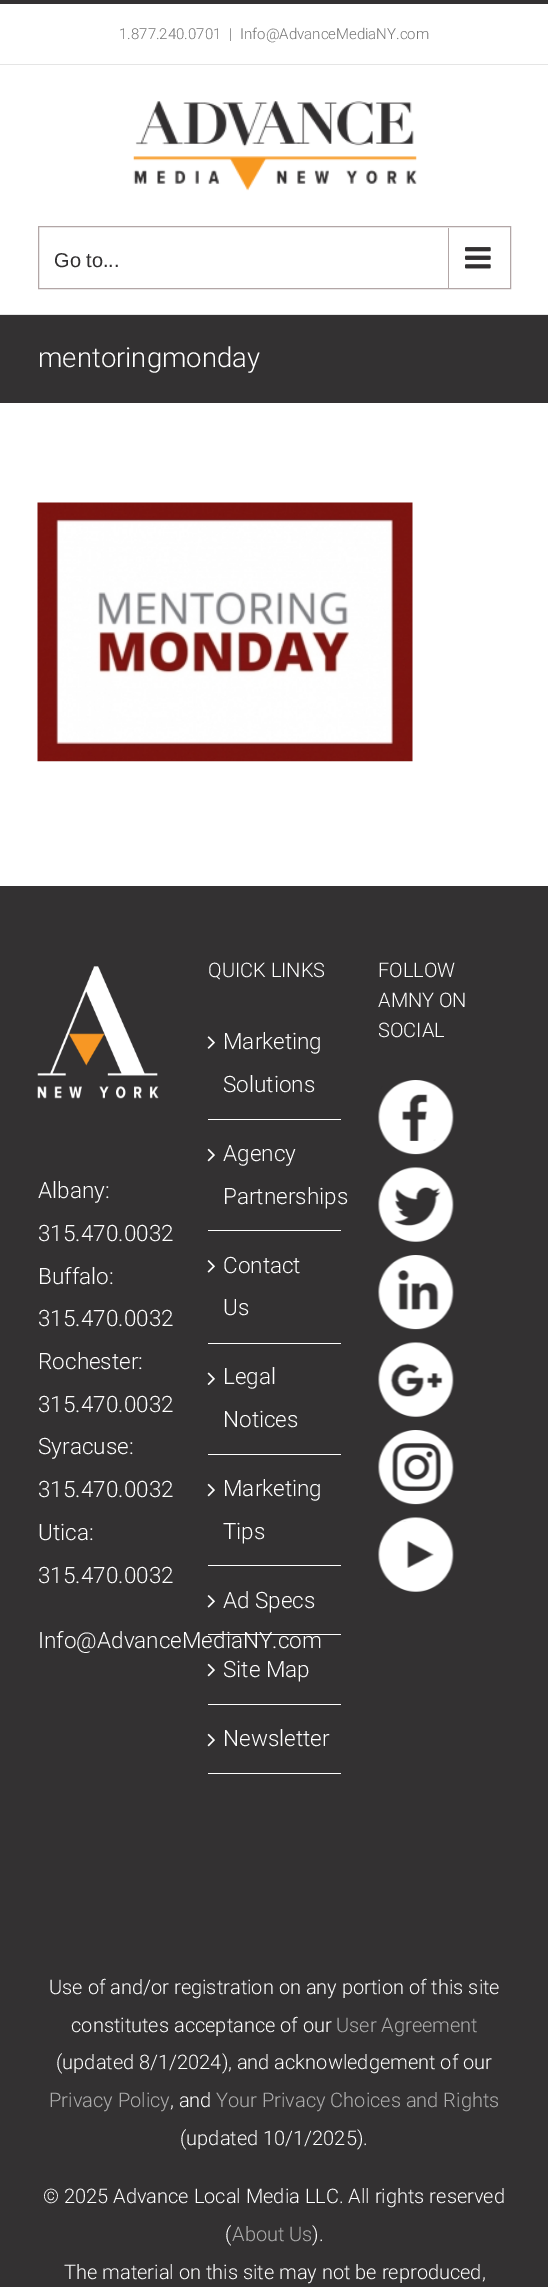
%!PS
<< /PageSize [548 2287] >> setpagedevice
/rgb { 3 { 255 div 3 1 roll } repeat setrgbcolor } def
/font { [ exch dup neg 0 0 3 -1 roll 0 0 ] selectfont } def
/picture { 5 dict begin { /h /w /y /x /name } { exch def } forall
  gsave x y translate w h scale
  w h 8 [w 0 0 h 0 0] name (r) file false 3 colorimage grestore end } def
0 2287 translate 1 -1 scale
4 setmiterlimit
255 255 255 rgb
0 0 548 2287 rectfill
[
  [0 0 548 4 51 49 50]
  [0 64 548 1 229 229 229]
  [0 314 548 1 229 229 229]
] { aload pop rgb rectfill } forall
(img/1.rgb) 133 101 284 90 picture
178 166 166 rgb
38.5 226.5 472 62 rectstroke
448 228 1 60 rectfill
(img/2.rgb) 465 247 26 22 picture
51 49 50 rgb
0 315 548 88 rectfill
(img/3.rgb) 37 502 376 260 picture
0 886 548 1401 rectfill
255 255 255 rgb
208 1119 133 1 rectfill
(img/4.rgb) 207 1036 8 13 picture
208 1230 133 1 rectfill
(img/5.rgb) 207 1148 8 14 picture
208 1343 133 1 rectfill
(img/6.rgb) 207 1260 8 13 picture
208 1454 133 1 rectfill
(img/7.rgb) 207 1372 8 13 picture
208 1565 133 1 rectfill
(img/5.rgb) 207 1483 8 14 picture
208 1634 133 1 rectfill
(img/6.rgb) 207 1595 8 13 picture
208 1704 133 1 rectfill
(img/5.rgb) 207 1663 8 14 picture
208 1773 133 1 rectfill
(img/5.rgb) 207 1733 8 14 picture
(img/8.rgb) 378 1080 76 75 picture
(img/9.rgb) 378 1167 76 75 picture
(img/10.rgb) 378 1255 76 75 picture
(img/11.rgb) 378 1342 76 75 picture
(img/12.rgb) 378 1430 76 75 picture
(img/13.rgb) 378 1517 76 75 picture
(img/14.rgb) 37 966 122 133 picture
/Roboto-Light 15 font
116 116 116 rgb
[
  [(1.877.240.0701) 119 39]
  [(|) 229 39]
  [(Info@AdvanceMediaNY.com) 240 39]
] { aload pop moveto show } forall
/LiberationSans-Regular 20 font
50 48 49 rgb
54 267 moveto (Go to...) show
/Roboto-Light 27.5 font
255 255 255 rgb
38 367 moveto (mentoringmonday) show
/Roboto-Light 20 font
208 977 moveto (QUICK LINKS) show
/Roboto-Light 22.5 font
[
  [(Marketing) 223 1049]
  [(Solutions) 223 1092]
  [(Agency) 223 1161]
  [(Partnerships) 223 1204]
  [(Contact) 223 1273]
  [(Us) 223 1315]
  [(Legal) 223 1384]
  [(Notices) 223 1427]
  [(Marketing) 223 1496]
  [(Tips) 223 1539]
  [(Ad Specs) 223 1608]
  [(Site Map) 223 1677]
  [(Newsletter) 223 1746]
] { aload pop moveto show } forall
/Roboto-Light 20 font
[
  [(FOLLOW) 378 977]
  [(AMNY ON) 378 1007]
  [(SOCIAL) 378 1037]
] { aload pop moveto show } forall
/Roboto-Light 22.5 font
[
  [(Albany:) 38 1198]
  [(315.470.0032) 38 1241]
  [(Buffalo:) 38 1284]
  [(315.470.0032) 38 1326]
  [(Rochester:) 38 1369]
  [(315.470.0032) 38 1412]
  [(Syracuse:) 38 1454]
  [(315.470.0032) 38 1497]
  [(Utica:) 38 1540]
  [(315.470.0032) 38 1583]
  [(Info@AdvanceMediaNY.com) 38 1648]
] { aload pop moveto show } forall
/Roboto-Light 20 font
49 1994 moveto (Use of and/or registration on any portion of this site) show
71 2032 moveto (constitutes acceptance of our) show
173 173 173 rgb
336 2032 moveto (User Agreement) show
255 255 255 rgb
56 2069 moveto (\(updated 8/1/2024\), and acknowledgement of our) show
173 173 173 rgb
49 2107 moveto (Privacy Policy) show
255 255 255 rgb
170 2107 moveto (, and) show
173 173 173 rgb
216 2107 moveto (Your Privacy Choices and Rights) show
255 255 255 rgb
[
  [(\(updated 10/1/2025\).) 180 2145]
  [(© 2025 Advance Local Media LLC. All rights reserved) 43 2203]
  [(\() 225 2241]
] { aload pop moveto show } forall
173 173 173 rgb
232 2241 moveto (About Us) show
255 255 255 rgb
312 2241 moveto (\).) show
64 2279 moveto (The material on this site may not be reproduced,) show
showpage
